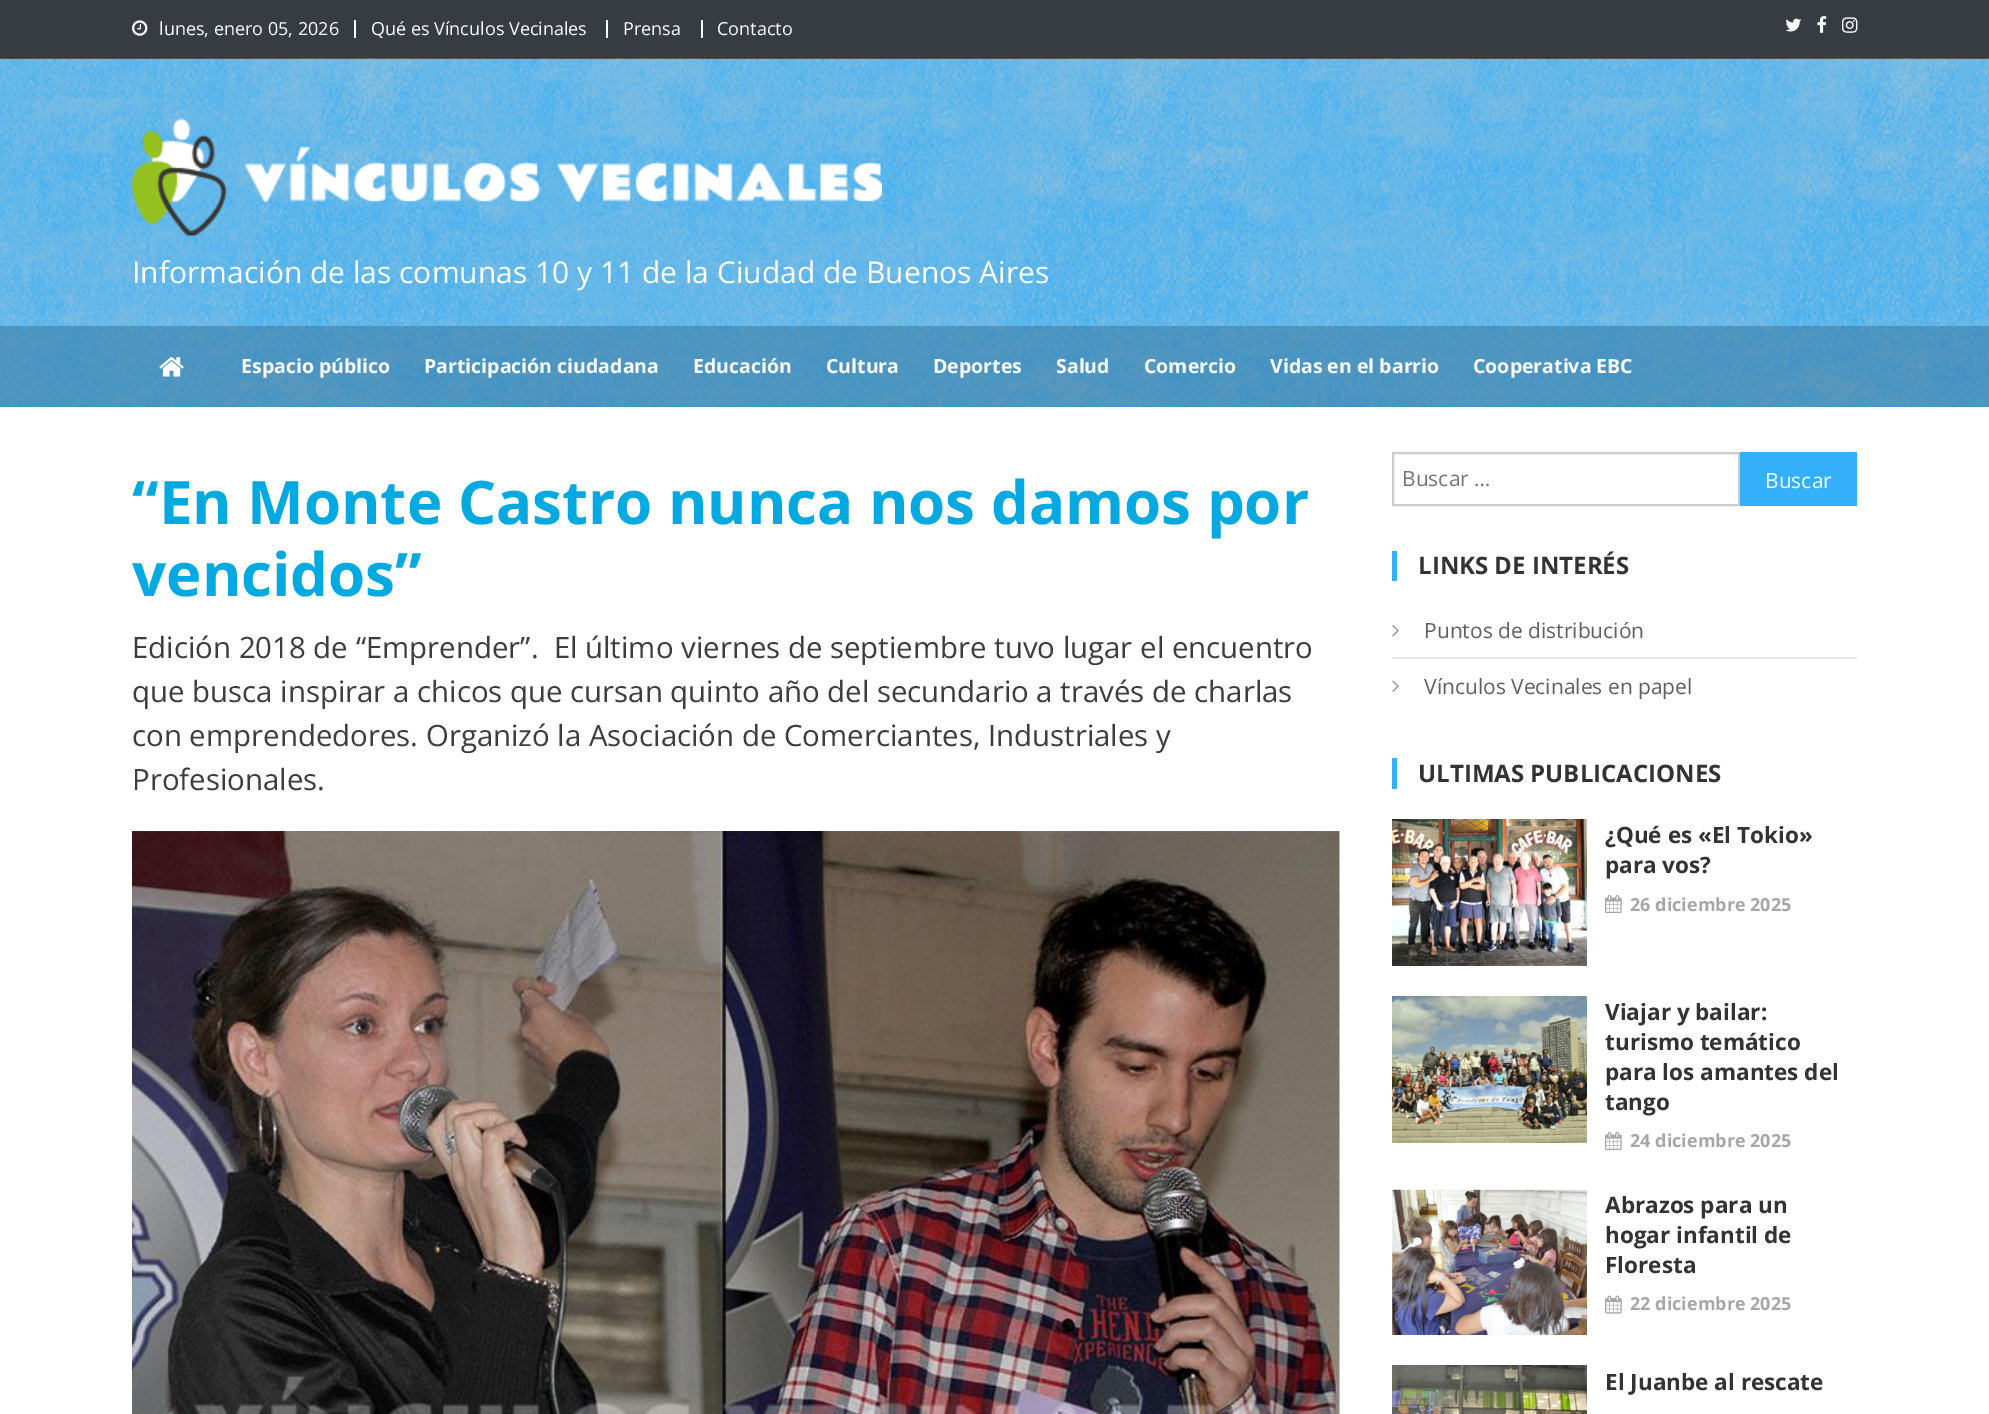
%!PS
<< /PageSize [1989 1414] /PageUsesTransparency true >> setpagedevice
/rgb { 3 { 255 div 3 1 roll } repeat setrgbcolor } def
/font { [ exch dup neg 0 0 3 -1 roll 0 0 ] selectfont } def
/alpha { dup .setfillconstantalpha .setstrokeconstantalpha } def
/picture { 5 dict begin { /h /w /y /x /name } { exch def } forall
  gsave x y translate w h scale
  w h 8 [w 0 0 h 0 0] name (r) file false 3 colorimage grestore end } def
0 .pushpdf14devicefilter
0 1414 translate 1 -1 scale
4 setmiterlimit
255 255 255 rgb
0 0 1989 1414 rectfill
55 60 66 rgb
0 0 1989 59 rectfill
(img/1.rgb) 132 20 16 16 picture
[
  [354 20 2 18 255 255 255]
  [606 20 2 18 255 255 255]
  [701 20 2 18 255 255 255]
] { aload pop rgb rectfill } forall
(img/2.rgb) 1785 18 17 14 picture
(img/3.rgb) 1817 16 10 17 picture
(img/4.rgb) 1842 17 16 16 picture
52 176 250 rgb
0 59 1989 348 rectfill
(img/5.rgb) 0 58 1989 349 picture
(img/6.rgb) 132 118 750 118 picture
0.5 alpha
51 115 154 rgb
0 326 1989 81 rectfill
1 alpha
(img/7.rgb) 159 357 25 20 picture
(img/8.rgb) 132 831 1208 583 picture
204 204 204 rgb
2 setlinewidth
1393 453 346 52 rectstroke
[
  [1740 452 117 54 52 176 250]
  [1392 551 5 30 52 176 250]
  [1392 657 465 2 230 230 230]
] { aload pop rgb rectfill } forall
(img/9.rgb) 1392 625 7 12 picture
(img/10.rgb) 1392 680 7 12 picture
52 176 250 rgb
1392 758 5 31 rectfill
(img/11.rgb) 1392 819 195 147 picture
(img/12.rgb) 1605 895 17 19 picture
(img/13.rgb) 1392 996 195 147 picture
(img/12.rgb) 1605 1132 17 19 picture
(img/14.rgb) 1392 1189 195 146 picture
(img/15.rgb) 1605 1295 17 19 picture
(img/16.rgb) 1392 1365 195 49 picture
/OpenSans-Regular 18 font
255 255 255 rgb
[
  [(lunes, enero 05, 2026) 159 35]
  [(Qué es Vínculos Vecinales) 371 35]
  [(Prensa) 623 35]
  [(Contacto) 717 35]
] { aload pop moveto show } forall
/OpenSans-Regular 30 font
132 283 moveto (Información de las comunas 10 y 11 de la Ciudad de Buenos Aires) show
/OpenSans-Bold 19.5 font
[
  [(Espacio público) 241 373]
  [(Participación ciudadana) 424 373]
  [(Educación) 693 373]
  [(Cultura) 826 373]
  [(Deportes) 933 373]
  [(Salud) 1056 373]
  [(Comercio) 1144 373]
  [(Vidas en el barrio) 1270 373]
  [(Cooperativa EBC) 1473 373]
] { aload pop moveto show } forall
/OpenSans-Bold 60 font
0 169 224 rgb
132 524 moveto (“En Monte Castro nunca nos damos por) show
132 596 moveto (vencidos”) show
/OpenSans-Regular 29.4 font
61 61 61 rgb
[
  [(Edición 2018 de “Emprender”.  El último viernes de septiembre tuvo lugar el encuentro) 132 658]
  [(que busca inspirar a chicos que cursan quinto año del secundario a través de charlas) 132 702]
  [(con emprendedores. Organizó la Asociación de Comerciantes, Industriales y) 132 746]
  [(Profesionales.) 132 790]
] { aload pop moveto show } forall
/OpenSans-Regular 21 font
117 117 117 rgb
1402 486 moveto (Buscar …) show
255 255 255 rgb
1765 488 moveto (Buscar) show
/OpenSans-Bold 24 font
51 51 51 rgb
1418 574 moveto (LINKS DE INTERÉS) show
/OpenSans-Regular 21 font
95 95 95 rgb
1424 638 moveto (Puntos de distribución) show
1424 694 moveto (Vínculos Vecinales en papel) show
/OpenSans-Bold 24 font
51 51 51 rgb
1418 782 moveto (ULTIMAS PUBLICACIONES) show
/OpenSans-Bold 22.5 font
1605 843 moveto (¿Qué es «El Tokio») show
1605 873 moveto (para vos?) show
/OpenSans-Bold 18 font
166 166 166 rgb
1630 911 moveto (26 diciembre 2025) show
/OpenSans-Bold 22.5 font
51 51 51 rgb
[
  [(Viajar y bailar:) 1605 1020]
  [(turismo temático) 1605 1050]
  [(para los amantes del) 1605 1080]
  [(tango) 1605 1110]
] { aload pop moveto show } forall
/OpenSans-Bold 18 font
166 166 166 rgb
1630 1147 moveto (24 diciembre 2025) show
/OpenSans-Bold 22.5 font
51 51 51 rgb
[
  [(Abrazos para un) 1605 1213]
  [(hogar infantil de) 1605 1243]
  [(Floresta) 1605 1273]
] { aload pop moveto show } forall
/OpenSans-Bold 18 font
166 166 166 rgb
1630 1310 moveto (22 diciembre 2025) show
/OpenSans-Bold 22.5 font
51 51 51 rgb
1605 1390 moveto (El Juanbe al rescate) show
.poppdf14devicefilter showpage
